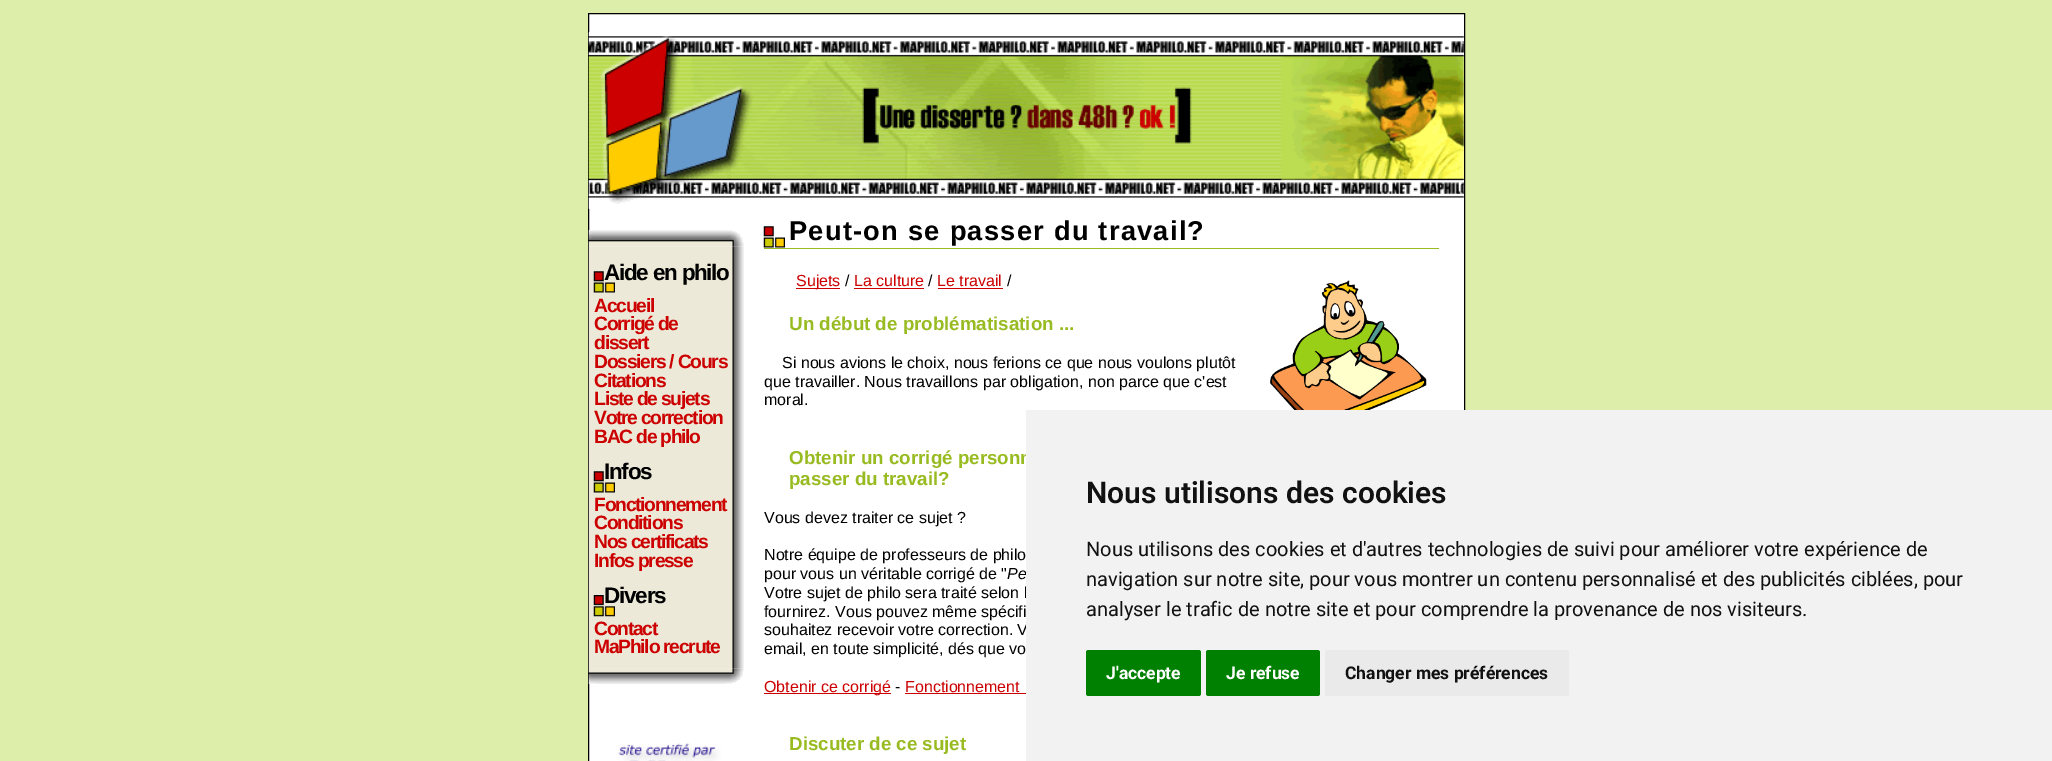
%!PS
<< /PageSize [2052 761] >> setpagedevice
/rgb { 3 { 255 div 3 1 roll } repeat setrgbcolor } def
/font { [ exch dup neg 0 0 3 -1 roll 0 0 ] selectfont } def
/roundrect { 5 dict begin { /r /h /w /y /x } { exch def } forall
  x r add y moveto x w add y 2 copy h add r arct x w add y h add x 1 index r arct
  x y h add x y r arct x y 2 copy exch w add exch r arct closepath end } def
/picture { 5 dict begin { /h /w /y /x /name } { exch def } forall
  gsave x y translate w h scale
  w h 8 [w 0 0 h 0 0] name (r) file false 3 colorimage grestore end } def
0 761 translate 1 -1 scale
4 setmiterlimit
221 238 170 rgb
0 0 2052 761 rectfill
255 255 255 rgb
588.5 13.5 moveto 1464.5 13.5 lineto 1464.5 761.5 lineto 588.5 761.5 lineto closepath gsave fill grestore
0 0 0 rgb
stroke
(img/1.rgb) 588 32 876 177 picture
(img/2.rgb) 588 230 156 17 picture
(img/6.rgb) 588 668 156 16 picture
(img/3.rgb) 588 246 156 423 picture
(img/4.rgb) 593 271 22 22 picture
(img/4.rgb) 593 471 22 22 picture
(img/5.rgb) 593 595 22 22 picture
(img/7.rgb) 618 743 103 18 picture
(img/8.rgb) 763 226 22 22 picture
[
  [764 248 675 1 153 187 34]
  [796 288 44 1 204 0 0]
  [854 288 70 1 204 0 0]
  [938 288 65 1 204 0 0]
] { aload pop rgb rectfill } forall
(img/9.rgb) 1270 280 157 130 picture
764 693 127 1 rectfill
905 693 121 1 rectfill
/LiberationSans-Bold 22.5 font
0 0 0 rgb
604 280 moveto -1.25 0 (Aide en philo) ashow
/LiberationSans-Bold 19.25 font
204 0 0 rgb
594 312 moveto -1.25 0 (Accueil) ashow
594 330 moveto -1.25 0 (Corrigé de) ashow
594 349 moveto -1.25 0 (dissert) ashow
594 368 moveto -1.25 0 (Dossiers / Cours) ashow
594 387 moveto -1.25 0 (Citations) ashow
594 405 moveto -1.25 0 (Liste de sujets) ashow
594 424 moveto -1.25 0 (Votre correction) ashow
594 443 moveto -1.25 0 (BAC de philo) ashow
/LiberationSans-Bold 22.5 font
0 0 0 rgb
604 479 moveto -1.25 0 (Infos) ashow
/LiberationSans-Bold 19.25 font
204 0 0 rgb
594 511 moveto -1.25 0 (Fonctionnement) ashow
594 529 moveto -1.25 0 (Conditions) ashow
594 548 moveto -1.25 0 (Nos certificats) ashow
594 567 moveto -1.25 0 (Infos presse) ashow
/LiberationSans-Bold 22.5 font
0 0 0 rgb
604 603 moveto -1.25 0 (Divers) ashow
/LiberationSans-Bold 19.25 font
204 0 0 rgb
594 635 moveto -1.25 0 (Contact) ashow
594 653 moveto -1.25 0 (MaPhilo recrute) ashow
/LiberationSans-Bold 27.25 font
0 0 0 rgb
789 240 moveto 1.25 0 (Peut-on se passer du travail?) ashow
/LiberationSans-Regular 16 font
204 0 0 rgb
796 286 moveto (Sujets) show
0 0 0 rgb
845 286 moveto (/) show
204 0 0 rgb
854 286 moveto (La culture) show
0 0 0 rgb
928 286 moveto (/) show
204 0 0 rgb
937 286 moveto (Le travail) show
0 0 0 rgb
1007 286 moveto (/) show
/LiberationSans-Bold 18.75 font
153 187 34 rgb
789 330 moveto (Un début de problématisation ...) show
/LiberationSans-Regular 16 font
0 0 0 rgb
[
  [(Si nous avions le choix, nous ferions ce que nous voulons plutôt) 782 368]
  [(que travailler. Nous travaillons par obligation, non parce que c'est) 764 387]
  [(moral.) 764 405]
] { aload pop moveto show } forall
/LiberationSans-Bold 18.75 font
153 187 34 rgb
789 464 moveto (Obtenir un corrigé personn) show
789 485 moveto (passer du travail?) show
/LiberationSans-Regular 16 font
0 0 0 rgb
[
  [(Vous devez traiter ce sujet ?) 764 523]
  [(Notre équipe de professeurs de philo) 764 560]
  [(pour vous un véritable corrigé de ") 764 579]
] { aload pop moveto show } forall
/LiberationSans-Italic 16 font
1007 579 moveto (Pe) show
/LiberationSans-Regular 16 font
[
  [(Votre sujet de philo sera traité selon l) 764 598]
  [(fournirez. Vous pouvez même spécifi) 764 617]
  [(souhaitez recevoir votre correction. V) 764 635]
  [(email, en toute simplicité, dés que vo) 764 654]
] { aload pop moveto show } forall
204 0 0 rgb
764 692 moveto (Obtenir ce corrigé) show
0 0 0 rgb
895 692 moveto (-) show
204 0 0 rgb
905 692 moveto (Fonctionnement) show
/LiberationSans-Bold 18.75 font
153 187 34 rgb
789 750 moveto (Discuter de ce sujet) show
242 242 242 rgb
1026 410 1026 351 rectfill
/Roboto-SemiBold 30 font
17 17 17 rgb
1086 503 moveto (Nous utilisons des cookies) show
/Roboto-Regular 20 font
[
  [(Nous utilisons des cookies et d'autres technologies de suivi pour améliorer votre expérience de) 1086 556]
  [(navigation sur notre site, pour vous montrer un contenu personnalisé et des publicités ciblées, pour) 1086 586]
  [(analyser le trafic de notre site et pour comprendre la provenance de nos visiteurs.) 1086 616]
] { aload pop moveto show } forall
0 128 0 rgb
1086 650 115 46 2.5 roundrect fill
/Roboto-Bold 17.5 font
255 255 255 rgb
1106 679 moveto (J'accepte) show
0 128 0 rgb
1206 650 114 46 2.5 roundrect fill
255 255 255 rgb
1226 679 moveto (Je refuse) show
234 234 234 rgb
1325 650 244 46 2.5 roundrect fill
17 17 17 rgb
1345 679 moveto (Changer mes préférences) show
showpage
